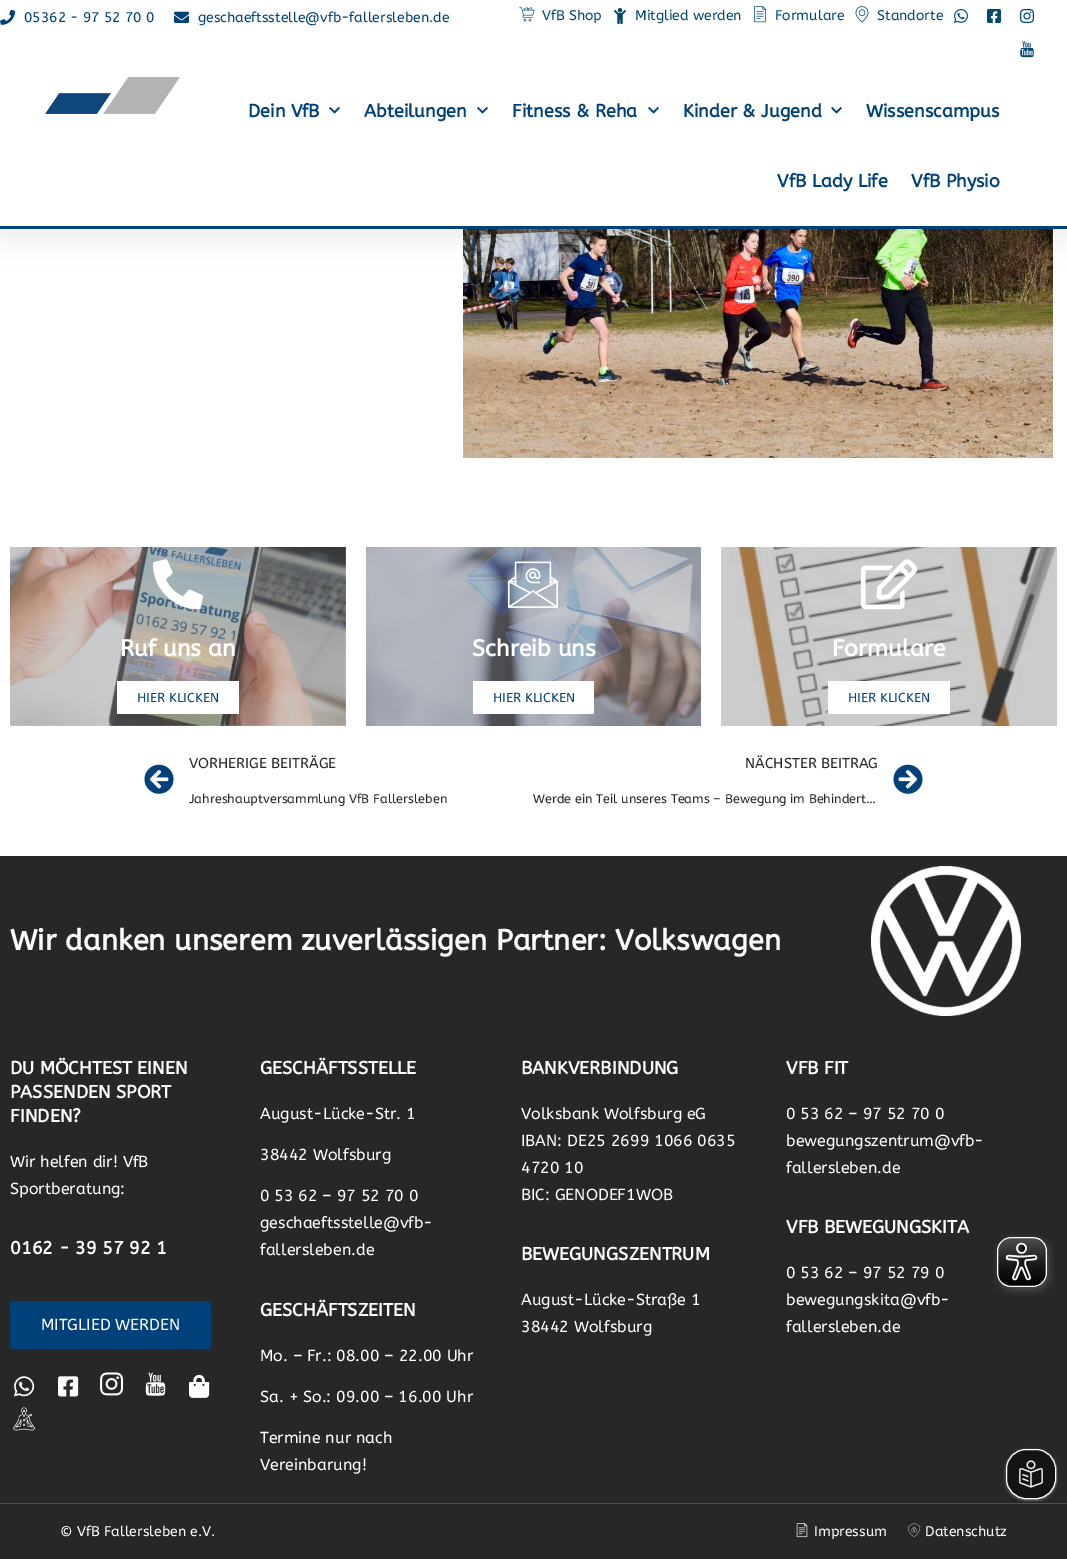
%!PS
<< /PageSize [1067 1559] /PageUsesTransparency true >> setpagedevice
/rgb { 3 { 255 div 3 1 roll } repeat setrgbcolor } def
/font { [ exch dup neg 0 0 3 -1 roll 0 0 ] selectfont } def
/alpha { dup .setfillconstantalpha .setstrokeconstantalpha } def
/roundrect { 5 dict begin { /r /h /w /y /x } { exch def } forall
  x r add y moveto x w add y 2 copy h add r arct x w add y h add x 1 index r arct
  x y h add x y r arct x y 2 copy exch w add exch r arct closepath end } def
/shadow { 12 dict begin { /a /b /q /h /w /y /x } { exch def } forall gsave /was 0 def
  9 -2 -9 { dup b mul 4 div /e exch def 1 sub .425 mul 2.718 exch exp 1 add a .99 .min exch div /now exch def
    1 1 now sub 1 was sub div sub alpha /was now def
    w h .min e 2 mul add 0 gt { x e sub y e sub w e 2 mul add h e 2 mul add
      q e add b .6 mul add w h .min 2 div e add .min 0 .max roundrect fill } if } for grestore end } def
/picture { 5 dict begin { /h /w /y /x /name } { exch def } forall
  gsave x y translate w h scale
  w h 8 [w 0 0 h 0 0] name (r) file false 3 colorimage grestore end } def
0 .pushpdf14devicefilter
0 1559 translate 1 -1 scale
4 setmiterlimit
255 255 255 rgb
0 0 1067 1559 rectfill
(img/13.rgb) 463 229 590 229 picture
0 0 0 rgb
0 5 1067 229 0 15 0.1 shadow
255 255 255 rgb
0 0 1067 226 rectfill
(img/1.rgb) 0 9 15 16 picture
(img/2.rgb) 174 11 15 12 picture
(img/3.rgb) 519 6 16 16 picture
(img/4.rgb) 614 8 12 16 picture
(img/5.rgb) 754 6 12 17 picture
(img/6.rgb) 855 6 14 17 picture
(img/7.rgb) 954 9 14 14 picture
(img/8.rgb) 987 9 14 14 picture
(img/9.rgb) 1020 9 14 14 picture
(img/10.rgb) 1020 41 14 17 picture
0 65 121 rgb
0 226 1067 3 rectfill
(img/11.rgb) 45 77 135 37 picture
(img/12.rgb) 329 107 11 7 picture
(img/12.rgb) 477 107 11 7 picture
(img/12.rgb) 648 107 11 7 picture
(img/12.rgb) 831 107 11 7 picture
(img/14.rgb) 10 547 336 179 picture
(img/15.rgb) 153 559 50 51 picture
255 255 255 rgb
117 681 122 33 rectfill
(img/16.rgb) 366 547 335 179 picture
(img/17.rgb) 508 561 50 47 picture
473 681 121 33 rectfill
(img/18.rgb) 721 547 336 179 picture
(img/19.rgb) 860 559 58 51 picture
828 681 122 33 rectfill
(img/20.rgb) 144 764 30 30 picture
(img/21.rgb) 893 764 30 30 picture
39 39 39 rgb
0 856 1067 647 rectfill
(img/22.rgb) 871 866 150 150 picture
0 65 121 rgb
10 1301 201 48 rectfill
(img/23.rgb) 14 1376 21 21 picture
(img/24.rgb) 58 1376 21 21 picture
(img/25.rgb) 100 1372 24 24 picture
(img/26.rgb) 145 1372 21 24 picture
(img/27.rgb) 189 1374 21 24 picture
(img/28.rgb) 13 1407 23 24 picture
39 39 39 rgb
0 1504 1067 55 rectfill
80 80 80 rgb
0 1503 1067 1 rectfill
(img/29.rgb) 796 1523 12 15 picture
(img/30.rgb) 908 1523 13 14 picture
(img/31.rgb) 993 1234 62 62 picture
132 132 132 rgb
1006 1450 50 50 20 1.5 1 shadow
21 20 20 rgb
1006.5 1449.5 49 49 19.5 roundrect gsave fill grestore
255 255 255 rgb
stroke
(img/32.rgb) 1019 1460 24 28 picture
/ABeeZee-Regular 14 font
0 65 121 rgb
24 22 moveto (05362 - 97 52 70 0) show
198 22 moveto (geschaeftsstelle@vfb-fallersleben.de) show
0 73 114 rgb
[
  [(VfB Shop) 542 20]
  [(Mitglied werden) 635 20]
  [(Formulare) 775 20]
  [(Standorte) 877 20]
] { aload pop moveto show } forall
/ABeeZee-Bold 18 font
0 65 121 rgb
[
  [(Dein VfB) 248 117]
  [(Abteilungen) 364 117]
  [(Fitness & Reha) 512 117]
  [(Kinder & Jugend) 683 117]
  [(Wissenscampus) 866 117]
  [(VfB Lady Life) 777 187]
  [(VfB Physio) 911 187]
] { aload pop moveto show } forall
/ABeeZee-Bold 23 font
255 255 255 rgb
120 656 moveto (Ruf uns an) show
/ABeeZee-Regular 13 font
0 65 121 rgb
137 702 moveto (HIER KLICKEN) show
/ABeeZee-Bold 23 font
255 255 255 rgb
472 656 moveto (Schreib uns) show
/ABeeZee-Regular 13 font
0 65 121 rgb
493 702 moveto (HIER KLICKEN) show
/ABeeZee-Bold 23 font
255 255 255 rgb
832 656 moveto (Formulare) show
/ABeeZee-Regular 13 font
0 65 121 rgb
848 702 moveto (HIER KLICKEN) show
/ABeeZee-Regular 14.4 font
39 39 39 rgb
189 768 moveto (VORHERIGE BEITRÄGE) show
/ABeeZee-Regular 12.6 font
189 803 moveto (Jahreshauptversammlung VfB Fallersleben) show
/ABeeZee-Regular 14.4 font
745 768 moveto (NÄCHSTER BEITRAG) show
/ABeeZee-Regular 12.6 font
533 803 moveto (Werde ein Teil unseres Teams – Bewegung im Behindert…) show
/ABeeZee-Bold 29 font
255 255 255 rgb
10 950 moveto (Wir danken unserem zuverlässigen Partner: Volkswagen) show
/ABeeZee-Bold 18 font
[
  [(DU MÖCHTEST EINEN) 10 1074]
  [(PASSENDEN SPORT) 10 1098]
  [(FINDEN?) 10 1122]
] { aload pop moveto show } forall
/ABeeZee-Regular 16 font
10 1167 moveto (Wir helfen dir! VfB) show
10 1194 moveto (Sportberatung:) show
/ABeeZee-Bold 18 font
10 1254 moveto (0162 - 39 57 92 1) show
/ABeeZee-Regular 16 font
41 1330 moveto (MITGLIED WERDEN) show
/ABeeZee-Bold 18 font
260 1074 moveto (GESCHÄFTSSTELLE) show
/ABeeZee-Regular 16 font
[
  [(August-Lücke-Str. 1) 260 1119]
  [(38442 Wolfsburg) 260 1160]
  [(0 53 62 – 97 52 70 0) 260 1201]
  [(geschaeftsstelle@vfb-) 260 1228]
  [(fallersleben.de) 260 1255]
] { aload pop moveto show } forall
/ABeeZee-Bold 18 font
260 1316 moveto (GESCHÄFTSZEITEN) show
/ABeeZee-Regular 16 font
[
  [(Mo. – Fr.: 08.00 – 22.00 Uhr) 260 1361]
  [(Sa. + So.: 09.00 – 16.00 Uhr) 260 1402]
  [(Termine nur nach) 260 1443]
  [(Vereinbarung!) 260 1470]
] { aload pop moveto show } forall
/ABeeZee-Bold 18 font
521 1074 moveto (BANKVERBINDUNG) show
/ABeeZee-Regular 16 font
[
  [(Volksbank Wolfsburg eG) 521 1119]
  [(IBAN: DE25 2699 1066 0635) 521 1146]
  [(4720 10) 521 1173]
  [(BIC: GENODEF1WOB) 521 1200]
] { aload pop moveto show } forall
/ABeeZee-Bold 18 font
521 1260 moveto (BEWEGUNGSZENTRUM) show
/ABeeZee-Regular 16 font
521 1305 moveto (August-Lücke-Straße 1) show
521 1332 moveto (38442 Wolfsburg) show
/ABeeZee-Bold 18 font
786 1074 moveto (VFB FIT) show
/ABeeZee-Regular 16 font
[
  [(0 53 62 – 97 52 70 0) 786 1119]
  [(bewegungszentrum@vfb-) 786 1146]
  [(fallersleben.de) 786 1173]
] { aload pop moveto show } forall
/ABeeZee-Bold 18 font
786 1233 moveto (VFB BEWEGUNGSKITA) show
/ABeeZee-Regular 16 font
[
  [(0 53 62 – 97 52 79 0) 786 1278]
  [(bewegungskita@vfb-) 786 1305]
  [(fallersleben.de) 786 1332]
] { aload pop moveto show } forall
/ABeeZee-Regular 14 font
[
  [(© VfB Fallersleben e.V.) 60 1536]
  [(Impressum) 814 1536]
  [(Datenschutz) 925 1536]
] { aload pop moveto show } forall
.poppdf14devicefilter showpage
